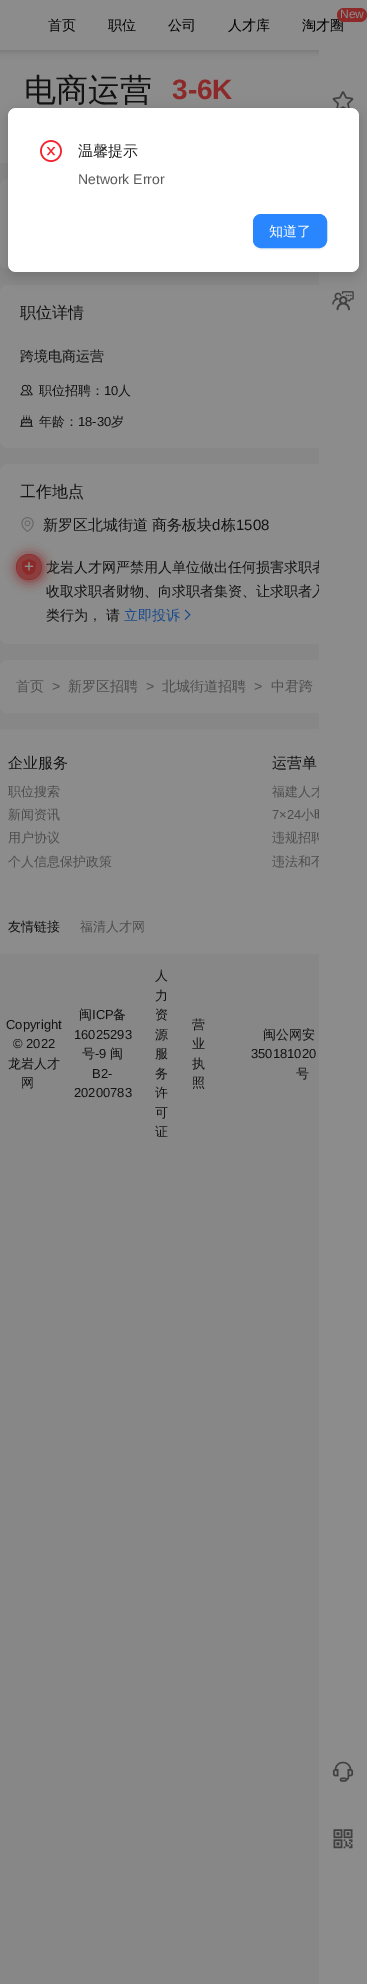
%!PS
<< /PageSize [367 1984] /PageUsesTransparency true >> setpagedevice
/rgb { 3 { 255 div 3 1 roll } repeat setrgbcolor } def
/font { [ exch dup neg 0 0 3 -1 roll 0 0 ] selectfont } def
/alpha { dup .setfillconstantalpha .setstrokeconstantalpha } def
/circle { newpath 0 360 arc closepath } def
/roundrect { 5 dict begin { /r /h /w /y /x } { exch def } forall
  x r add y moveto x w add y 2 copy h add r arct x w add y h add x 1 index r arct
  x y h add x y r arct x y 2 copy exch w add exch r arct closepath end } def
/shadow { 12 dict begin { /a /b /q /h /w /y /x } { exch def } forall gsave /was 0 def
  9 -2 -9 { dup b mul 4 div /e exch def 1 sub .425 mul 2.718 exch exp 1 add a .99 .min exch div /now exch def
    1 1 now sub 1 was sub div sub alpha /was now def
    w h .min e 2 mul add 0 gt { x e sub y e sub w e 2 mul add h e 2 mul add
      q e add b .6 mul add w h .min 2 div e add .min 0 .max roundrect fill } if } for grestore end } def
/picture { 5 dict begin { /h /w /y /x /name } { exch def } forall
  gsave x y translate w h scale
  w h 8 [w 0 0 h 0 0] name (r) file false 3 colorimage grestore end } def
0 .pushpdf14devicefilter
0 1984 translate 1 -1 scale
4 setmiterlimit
135 135 136 rgb
0 0 367 1984 rectfill
140 140 140 rgb
0 50 319 113 rectfill
0 0 0 rgb
0 1 367 50 0 4 0.2 shadow
140 140 140 rgb
0 0 367 50 rectfill
0 179 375 90 8 roundrect fill
0 285 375 163 8 roundrect fill
(img/1.rgb) 20 384 13 12 picture
(img/2.rgb) 20 415 13 12 picture
0 464 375 180 8 roundrect fill
(img/3.rgb) 21 517 13 15 picture
gsave
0 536 moveto 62 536 lineto 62 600 lineto 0 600 lineto closepath 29 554 moveto 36 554 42 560 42 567 curveto 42 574 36 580 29 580 curveto 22 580 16 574 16 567 curveto 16 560 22 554 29 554 curveto closepath eoclip newpath
140 42 42 rgb
17 555 26 26 13 6 1 shadow
grestore
0.8 alpha
140 42 42 rgb
29 567 13 circle fill
1 alpha
(img/4.rgb) 22 559 14 16 picture
(img/5.rgb) 184 609 7 11 picture
140 140 140 rgb
0 660 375 53 8 roundrect fill
0 729 319 225 rectfill
/WenQuanYiZenHei-Medium 14 font
0 0 0 rgb
[
  [(首页) 48 30]
  [(职位) 108 30]
  [(公司) 168 30]
  [(人才库) 228 30]
  [(淘才圈) 302 30]
] { aload pop moveto show } forall
140 42 42 rgb
337 8 30 14 7 roundrect fill
/LiberationSans-Regular 12 font
140 140 140 rgb
340 18 moveto (New) show
/WenQuanYiZenHei-Medium 32 font
18 18 18 rgb
24 101 moveto (电商运营) show
/LiberationSans-Bold 28 font
140 42 42 rgb
172 99 moveto (3-6K) show
/WenQuanYiZenHei-Medium 16 font
18 18 18 rgb
20 318 moveto (职位详情) show
/WenQuanYiZenHei-Medium 14 font
20 361 moveto (跨境电商运营) show
/WenQuanYiZenHei-Medium 13 font
39 395 moveto (职位招聘：) show
/LiberationSans-Regular 13 font
104 395 moveto (10) show
/WenQuanYiZenHei-Medium 13 font
118 395 moveto (人) show
39 426 moveto (年龄：) show
/LiberationSans-Regular 13 font
78 426 moveto (18-30) show
/WenQuanYiZenHei-Medium 13 font
111 426 moveto (岁) show
/WenQuanYiZenHei-Medium 16 font
20 497 moveto (工作地点) show
/WenQuanYiZenHei-Medium 15 font
43 530 moveto (新罗区北城街道 商务板块) show
/LiberationSans-Regular 15 font
212 530 moveto (d) show
/WenQuanYiZenHei-Medium 15 font
221 530 moveto (栋) show
/LiberationSans-Regular 15 font
236 530 moveto (1508) show
/WenQuanYiZenHei-Medium 14 font
[
  [(龙岩人才网严禁用人单位做出任何损害求职者) 46 572]
  [(收取求职者财物、向求职者集资、让求职者入) 46 596]
  [(类行为， 请) 46 620]
] { aload pop moveto show } forall
23 74 140 rgb
124 620 moveto (立即投诉) show
77 77 77 rgb
16 691 moveto (首页) show
/LiberationSans-Regular 14 font
52 691 moveto (>) show
/WenQuanYiZenHei-Medium 14 font
68 691 moveto (新罗区招聘) show
/LiberationSans-Regular 14 font
146 691 moveto (>) show
/WenQuanYiZenHei-Medium 14 font
162 691 moveto (北城街道招聘) show
/LiberationSans-Regular 14 font
254 691 moveto (>) show
/WenQuanYiZenHei-Medium 14 font
271 691 moveto (中君跨) show
/WenQuanYiZenHei-Medium 15 font
18 18 18 rgb
8 768 moveto (企业服务) show
/WenQuanYiZenHei-Medium 13 font
77 77 77 rgb
[
  [(职位搜索) 8 796]
  [(新闻资讯) 8 819]
  [(用户协议) 8 842]
  [(个人信息保护政策) 8 866]
] { aload pop moveto show } forall
/WenQuanYiZenHei-Medium 15 font
18 18 18 rgb
272 768 moveto (运营单) show
/WenQuanYiZenHei-Medium 13 font
77 77 77 rgb
272 796 moveto (福建人才) show
/LiberationSans-Regular 13 font
272 819 moveto (7×24) show
/WenQuanYiZenHei-Medium 13 font
[
  [(小时) 301 819]
  [(违规招聘) 272 842]
  [(违法和不) 272 866]
] { aload pop moveto show } forall
140 140 140 rgb
319 50 48 1934 rectfill
(img/9.rgb) 333 1829 20 20 picture
(img/8.rgb) 332 1761 22 21 picture
(img/7.rgb) 332 291 22 20 picture
(img/6.rgb) 332 91 22 17 picture
18 18 18 rgb
8 931 moveto (友情链接) show
77 77 77 rgb
80 931 moveto (福清人才网) show
/LiberationSans-Regular 13 font
18 18 18 rgb
6 1029 moveto (Copyright) show
13 1048 moveto (© 2022) show
/WenQuanYiZenHei-Medium 13 font
[
  [(龙岩人才) 8 1068]
  [(网) 21 1087]
  [(闽) 79 1019]
] { aload pop moveto show } forall
/LiberationSans-Regular 13 font
92 1019 moveto (ICP) show
/WenQuanYiZenHei-Medium 13 font
113 1019 moveto (备) show
/LiberationSans-Regular 13 font
74 1039 moveto (16025293) show
/WenQuanYiZenHei-Medium 13 font
82 1058 moveto (号) show
/LiberationSans-Regular 13 font
95 1058 moveto (-9) show
/WenQuanYiZenHei-Medium 13 font
110 1058 moveto (闽) show
/LiberationSans-Regular 13 font
92 1078 moveto (B2-) show
74 1097 moveto (20200783) show
/WenQuanYiZenHei-Medium 13 font
[
  [(人) 155 980]
  [(力) 155 1000]
  [(资) 155 1019]
  [(源) 155 1039]
  [(服) 155 1058]
  [(务) 155 1078]
  [(许) 155 1097]
  [(可) 155 1117]
  [(证) 155 1136]
  [(营) 192 1029]
  [(业) 192 1048]
  [(执) 192 1068]
  [(照) 192 1087]
  [(闽公网安) 263 1039]
] { aload pop moveto show } forall
/LiberationSans-Regular 13 font
251 1058 moveto (350181020) show
/WenQuanYiZenHei-Medium 13 font
296 1078 moveto (号) show
0 0 0 rgb
8 112 351 164 8 6 0.15 shadow
255 255 255 rgb
8 108 351 164 8 roundrect fill
(img/10.rgb) 40 140 22 22 picture
/WenQuanYiZenHei-Medium 15 font
33 33 33 rgb
78 156 moveto (温馨提示) show
/LiberationSans-Regular 14 font
89 89 89 rgb
78 184 moveto (Network Error) show
244 244 244 rgb
253 240 moveto 253 252 261 250 271 250 curveto 309 250 lineto 319 250 327 252 327 240 curveto 327 244 323 248 319 248 curveto 261 248 lineto 257 248 253 244 253 240 curveto closepath fill
41 134 255 rgb
253.5 214.5 73 33 7.5 roundrect gsave fill grestore
stroke
/WenQuanYiZenHei-Medium 14 font
255 255 255 rgb
269 236 moveto (知道了) show
.poppdf14devicefilter showpage
